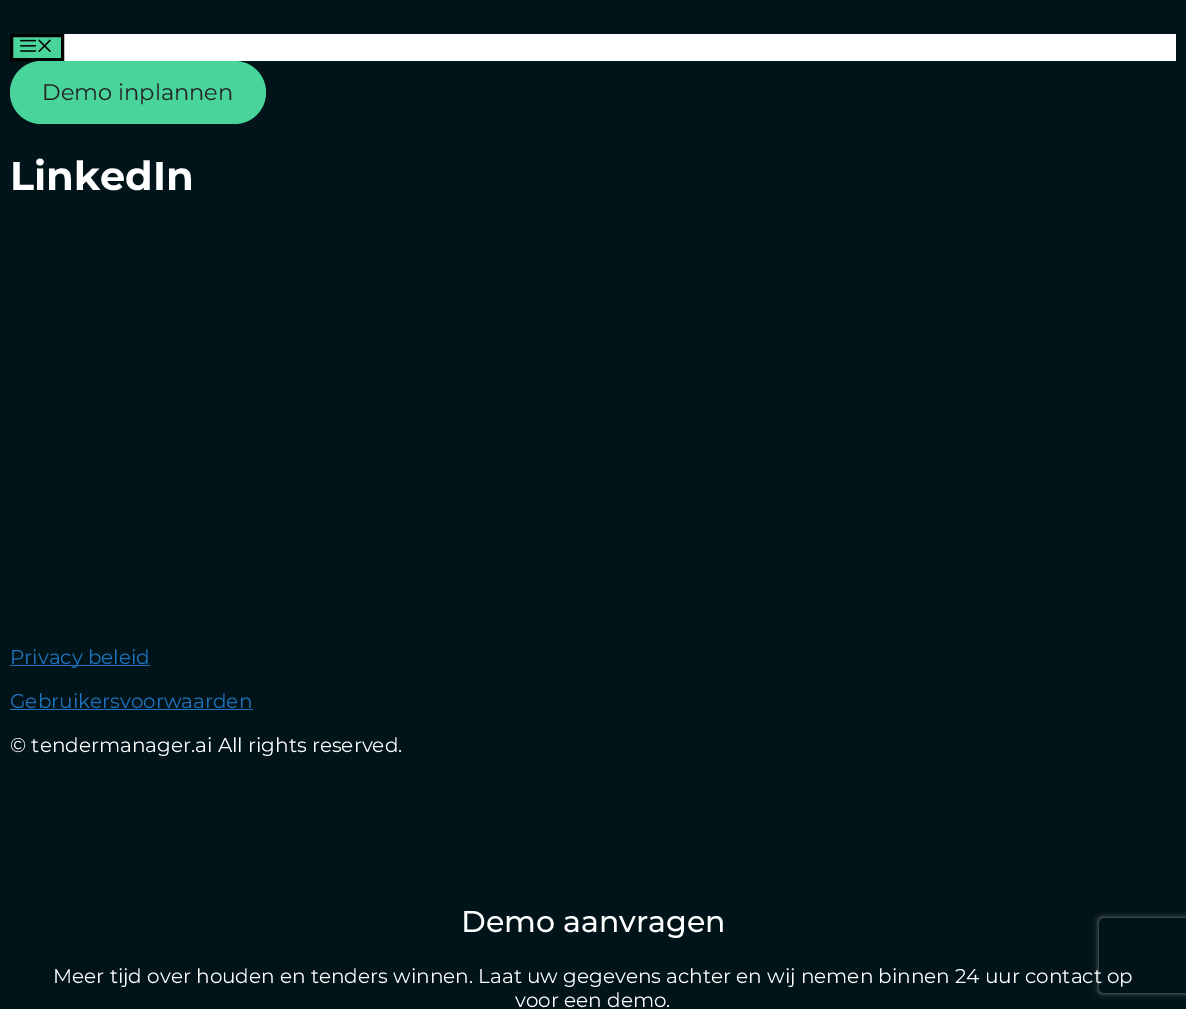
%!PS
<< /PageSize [1186 1009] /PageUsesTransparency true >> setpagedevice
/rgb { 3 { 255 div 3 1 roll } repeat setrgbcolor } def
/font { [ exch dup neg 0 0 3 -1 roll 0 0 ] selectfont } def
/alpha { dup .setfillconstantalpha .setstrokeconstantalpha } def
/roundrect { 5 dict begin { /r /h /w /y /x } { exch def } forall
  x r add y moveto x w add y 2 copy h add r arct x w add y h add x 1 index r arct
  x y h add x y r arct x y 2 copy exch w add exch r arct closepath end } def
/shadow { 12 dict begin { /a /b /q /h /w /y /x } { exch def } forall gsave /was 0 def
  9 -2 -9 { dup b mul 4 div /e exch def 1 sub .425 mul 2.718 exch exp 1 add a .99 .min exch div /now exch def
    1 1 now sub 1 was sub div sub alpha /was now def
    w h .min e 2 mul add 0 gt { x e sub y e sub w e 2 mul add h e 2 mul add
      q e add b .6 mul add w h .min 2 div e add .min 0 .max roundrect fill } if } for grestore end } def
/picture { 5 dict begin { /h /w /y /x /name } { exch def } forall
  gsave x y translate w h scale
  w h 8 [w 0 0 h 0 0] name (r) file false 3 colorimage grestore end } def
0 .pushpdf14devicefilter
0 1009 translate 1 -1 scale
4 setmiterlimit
0 20 25 rgb
0 0 1186 1009 rectfill
255 255 255 rgb
64 34 1112 27 rectfill
73 212 156 rgb
11.5 35.5 moveto 62.5 35.5 lineto 62.5 59.5 lineto 11.5 59.5 lineto closepath gsave fill grestore
0 0 0 rgb
3 setlinewidth
stroke
(img/1.rgb) 20 39 16 13 picture
(img/2.rgb) 38 39 13 13 picture
73 212 156 rgb
10 61 256 63 31.5 roundrect fill
30 115 190 rgb
10 665 140 1 rectfill
10 709 243 1 rectfill
gsave
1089 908 moveto 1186 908 lineto 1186 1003 lineto 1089 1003 lineto closepath 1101.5 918 moveto 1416.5 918 lineto 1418 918 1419 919 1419 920.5 curveto 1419 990.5 lineto 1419 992 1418 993 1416.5 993 curveto 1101.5 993 lineto 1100 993 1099 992 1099 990.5 curveto 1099 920.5 lineto 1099 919 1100 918 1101.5 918 curveto closepath eoclip newpath
128 128 128 rgb
1099 918 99 75 2.5 3 1 shadow
grestore
/Montserrat-Regular 22.5 font
34 34 34 rgb
42 100 moveto (Demo inplannen) show
/Montserrat-Bold 40 font
255 255 255 rgb
10 190 moveto (LinkedIn) show
/Montserrat-Regular 20 font
30 115 190 rgb
10 664 moveto (Privacy beleid) show
10 708 moveto (Gebruikersvoorwaarden) show
255 255 255 rgb
10 752 moveto (© tendermanager.ai All rights reserved.) show
/Montserrat-Medium 30 font
461 932 moveto (Demo aanvragen) show
/Montserrat-Regular 20 font
53 983 moveto (Meer tijd over houden en tenders winnen. Laat uw gegevens achter en wij nemen binnen 24 uur contact op) show
515 1007 moveto (voor een demo.) show
.poppdf14devicefilter showpage
